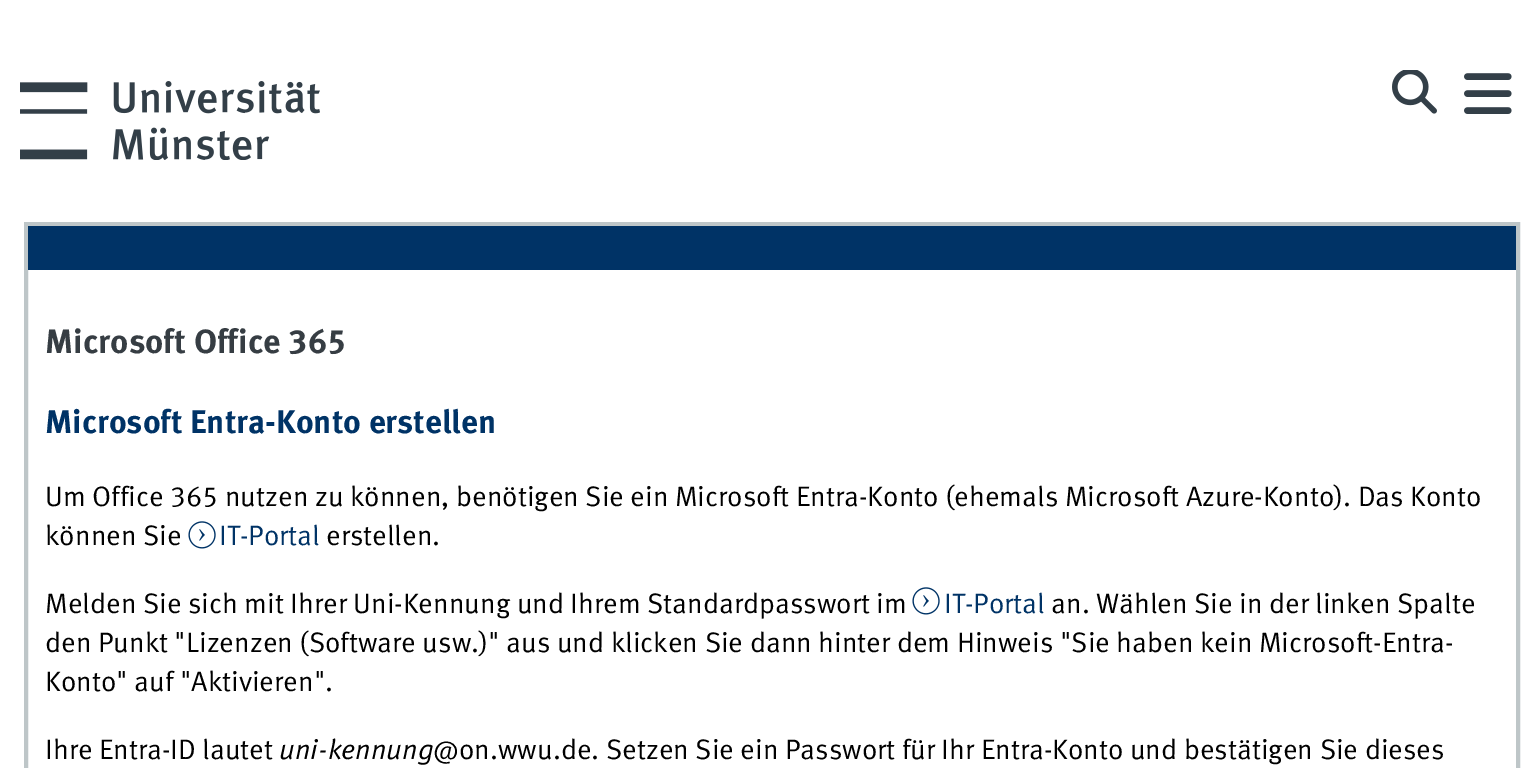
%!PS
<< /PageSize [1536 768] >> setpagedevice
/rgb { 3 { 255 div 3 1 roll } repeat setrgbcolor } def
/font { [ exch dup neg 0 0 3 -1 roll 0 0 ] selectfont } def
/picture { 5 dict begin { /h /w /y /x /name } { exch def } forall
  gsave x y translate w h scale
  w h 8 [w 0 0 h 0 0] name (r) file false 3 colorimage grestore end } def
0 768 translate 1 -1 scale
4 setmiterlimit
255 255 255 rgb
0 0 1536 768 rectfill
(img/1.rgb) 20 81 300 79 picture
(img/2.rgb) 1392 70 45 44 picture
(img/3.rgb) 1464 73 48 41 picture
190 198 200 rgb
4 setlinewidth
26 224 1492 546 rectstroke
0 51 102 rgb
28 226 1488 44 rectfill
(img/4.rgb) 188 521 28 28 picture
(img/4.rgb) 912 587 28 28 picture
/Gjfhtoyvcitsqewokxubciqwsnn-Bold 33.75 font
54 61 67 rgb
45 353 moveto (Microsoft Office 365) show
/Gjfhtoyvcitsqewokxubciqwsnn-Bold 32.9 font
0 51 102 rgb
45 433 moveto (Microsoft Entra-Konto erstellen) show
/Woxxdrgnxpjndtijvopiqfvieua-Regular 28.12 font
0 0 0 rgb
45 506 moveto (Um Office 365 nutzen zu können, benötigen Sie ein Microsoft Entra-Konto \(ehemals Microsoft Azure-Konto\). Das Konto) show
45 545 moveto (können Sie) show
0 51 102 rgb
219 545 moveto (IT-Portal) show
0 0 0 rgb
326 545 moveto (erstellen.) show
45 613 moveto (Melden Sie sich mit Ihrer Uni-Kennung und Ihrem Standardpasswort im) show
0 51 102 rgb
944 613 moveto (IT-Portal) show
0 0 0 rgb
[
  [(an. Wählen Sie in der linken Spalte) 1051 613]
  [(den Punkt "Lizenzen \(Software usw.\)" aus und klicken Sie dann hinter dem Hinweis "Sie haben kein Microsoft-Entra-) 45 652]
  [(Konto" auf "Aktivieren".) 45 691]
  [(Ihre Entra-ID lautet) 45 759]
] { aload pop moveto show } forall
/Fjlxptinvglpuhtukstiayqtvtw-Italic 28.12 font
279 759 moveto (uni-kennung) show
/Woxxdrgnxpjndtijvopiqfvieua-Regular 28.12 font
433 759 moveto (@on.wwu.de. Setzen Sie ein Passwort für Ihr Entra-Konto und bestätigen Sie dieses) show
showpage
